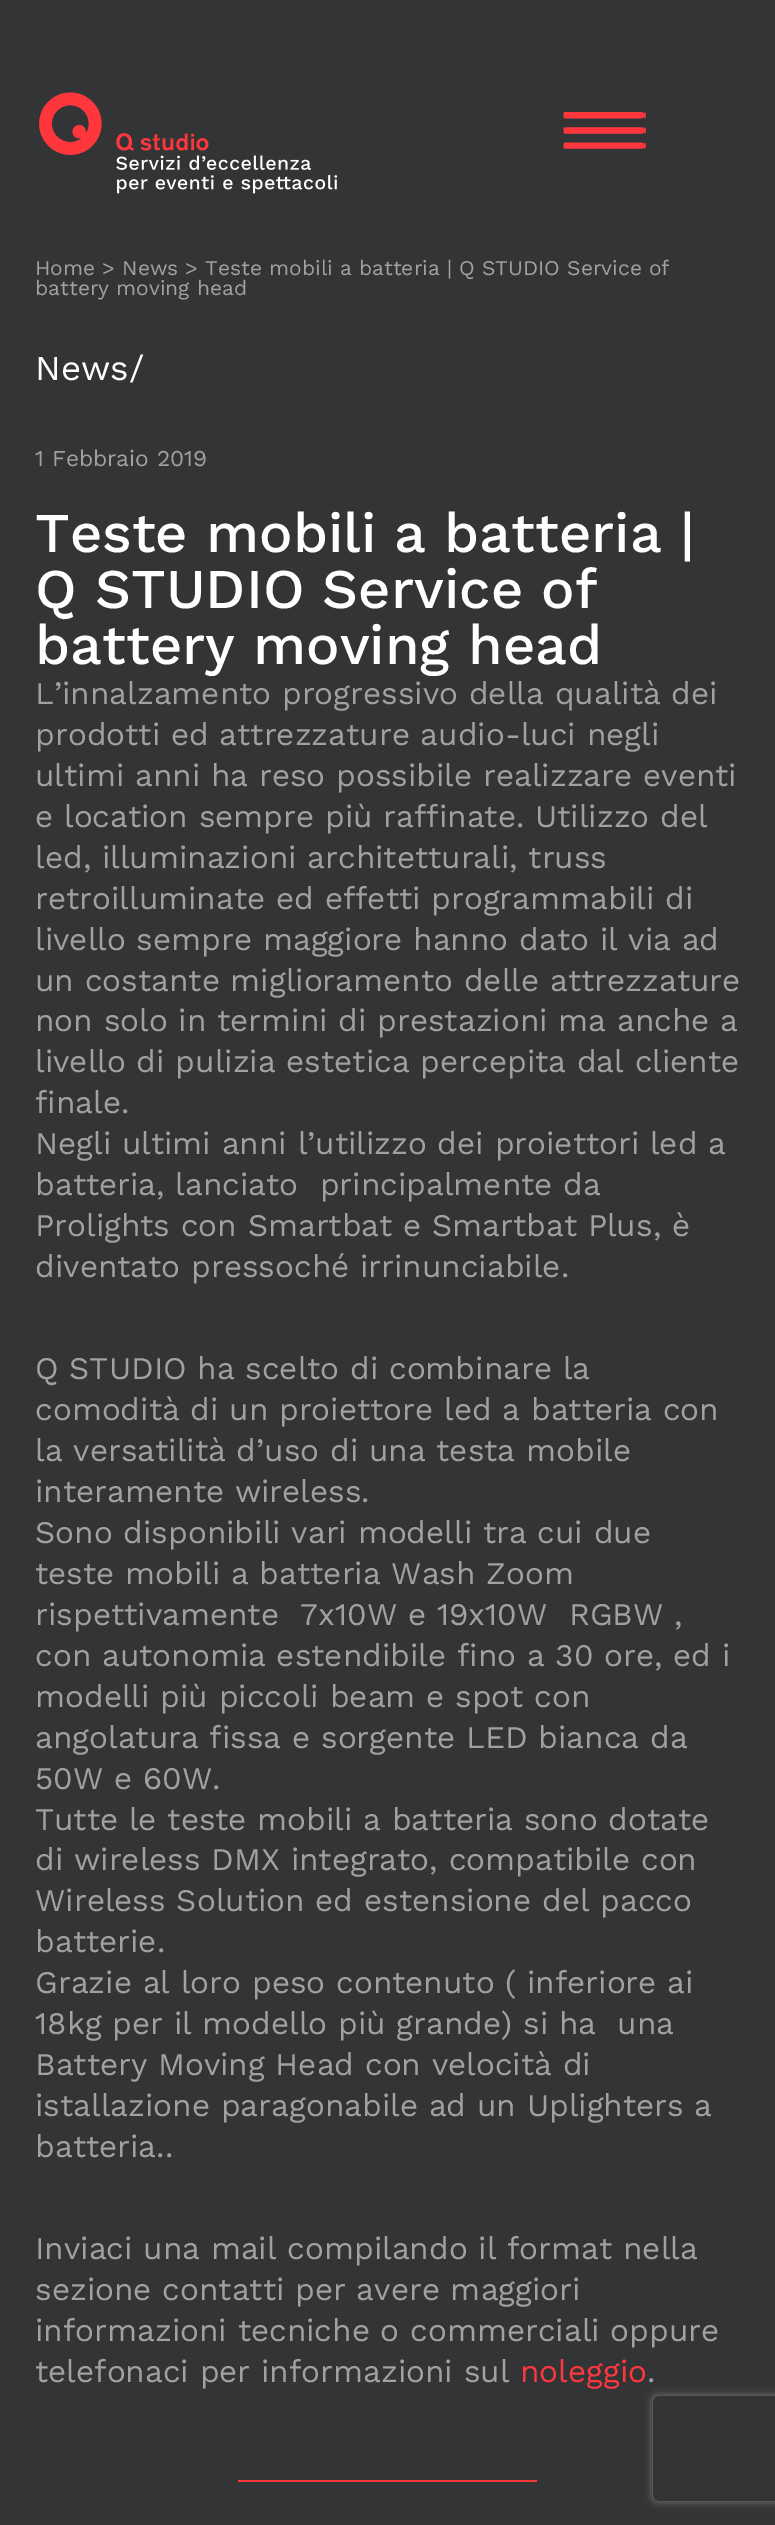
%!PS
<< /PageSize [775 2525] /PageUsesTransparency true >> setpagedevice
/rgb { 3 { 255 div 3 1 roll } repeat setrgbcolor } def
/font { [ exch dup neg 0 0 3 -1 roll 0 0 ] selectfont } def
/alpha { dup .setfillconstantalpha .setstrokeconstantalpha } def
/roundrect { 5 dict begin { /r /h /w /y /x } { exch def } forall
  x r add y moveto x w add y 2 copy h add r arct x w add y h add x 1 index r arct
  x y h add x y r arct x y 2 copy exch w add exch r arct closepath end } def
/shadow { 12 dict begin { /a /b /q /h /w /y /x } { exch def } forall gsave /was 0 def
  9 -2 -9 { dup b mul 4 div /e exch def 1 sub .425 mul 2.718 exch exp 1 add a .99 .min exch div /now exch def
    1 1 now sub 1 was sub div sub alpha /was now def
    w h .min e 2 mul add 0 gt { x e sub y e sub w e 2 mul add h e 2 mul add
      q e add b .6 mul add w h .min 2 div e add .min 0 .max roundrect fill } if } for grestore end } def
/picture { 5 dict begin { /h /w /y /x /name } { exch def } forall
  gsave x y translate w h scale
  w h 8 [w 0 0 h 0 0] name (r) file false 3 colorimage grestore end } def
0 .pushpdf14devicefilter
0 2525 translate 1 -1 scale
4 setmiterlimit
50 52 54 rgb
0 0 775 2525 rectfill
(img/1.rgb) 39 92 299 102 picture
(img/2.rgb) 563 112 83 37 picture
255 55 60 rgb
238 2480 299 2 rectfill
gsave
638 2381 moveto 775 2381 lineto 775 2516 lineto 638 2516 lineto closepath 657 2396 moveto 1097 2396 lineto 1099 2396 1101 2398 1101 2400 curveto 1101 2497 lineto 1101 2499 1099 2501 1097 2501 curveto 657 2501 lineto 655 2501 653 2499 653 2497 curveto 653 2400 lineto 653 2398 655 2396 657 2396 curveto closepath eoclip newpath
128 128 128 rgb
653 2396 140 105 4 4.5 1 shadow
grestore
/WorkSans-Regular 21 font
161 161 161 rgb
35 275 moveto (Home > News > Teste mobili a batteria | Q STUDIO Service of) show
35 295 moveto (battery moving head) show
/WorkSans-Regular 35 font
255 255 255 rgb
35 380 moveto (News/) show
/WorkSans-Regular 22.75 font
161 161 161 rgb
35 466 moveto (1 Febbraio 2019) show
/WorkSans-Medium 56 font
255 255 255 rgb
[
  [(Teste mobili a batteria |) 35 552]
  [(Q STUDIO Service of) 35 608]
  [(battery moving head) 35 664]
] { aload pop moveto show } forall
/WorkSans-Regular 31.5 font
161 161 161 rgb
[
  [(L’innalzamento progressivo della qualità dei) 35 704]
  [(prodotti ed attrezzature audio-luci negli) 35 745]
  [(ultimi anni ha reso possibile realizzare eventi) 35 786]
  [(e location sempre più raffinate. Utilizzo del) 35 827]
  [(led, illuminazioni architetturali, truss) 35 868]
  [(retroilluminate ed effetti programmabili di) 35 909]
  [(livello sempre maggiore hanno dato il via ad) 35 950]
  [(un costante miglioramento delle attrezzature) 35 991]
  [(non solo in termini di prestazioni ma anche a) 35 1031]
  [(livello di pulizia estetica percepita dal cliente) 35 1072]
  [(finale.) 35 1113]
  [(Negli ultimi anni l’utilizzo dei proiettori led a) 35 1154]
  [(batteria, lanciato  principalmente da) 35 1195]
  [(Prolights con Smartbat e Smartbat Plus, è) 35 1236]
  [(diventato pressoché irrinunciabile.) 35 1277]
  [(Q STUDIO ha scelto di combinare la) 35 1379]
  [(comodità di un proiettore led a batteria con) 35 1420]
  [(la versatilità d’uso di una testa mobile) 35 1461]
  [(interamente wireless.) 35 1502]
  [(Sono disponibili vari modelli tra cui due) 35 1543]
  [(teste mobili a batteria Wash Zoom) 35 1584]
  [(rispettivamente  7x10W e 19x10W  RGBW ,) 35 1625]
  [(con autonomia estendibile fino a 30 ore, ed i) 35 1666]
  [(modelli più piccoli beam e spot con) 35 1707]
  [(angolatura fissa e sorgente LED bianca da) 35 1748]
  [(50W e 60W.) 35 1789]
  [(Tutte le teste mobili a batteria sono dotate) 35 1830]
  [(di wireless DMX integrato, compatibile con) 35 1870]
  [(Wireless Solution ed estensione del pacco) 35 1911]
  [(batterie.) 35 1952]
  [(Grazie al loro peso contenuto \( inferiore ai) 35 1993]
  [(18kg per il modello più grande\) si ha  una) 35 2034]
  [(Battery Moving Head con velocità di) 35 2075]
  [(istallazione paragonabile ad un Uplighters a) 35 2116]
  [(batteria..) 35 2157]
  [(Inviaci una mail compilando il format nella) 35 2259]
  [(sezione contatti per avere maggiori) 35 2300]
  [(informazioni tecniche o commerciali oppure) 35 2341]
  [(telefonaci per informazioni sul) 35 2382]
] { aload pop moveto show } forall
255 55 60 rgb
520 2382 moveto (noleggio) show
161 161 161 rgb
647 2382 moveto (.) show
.poppdf14devicefilter showpage
